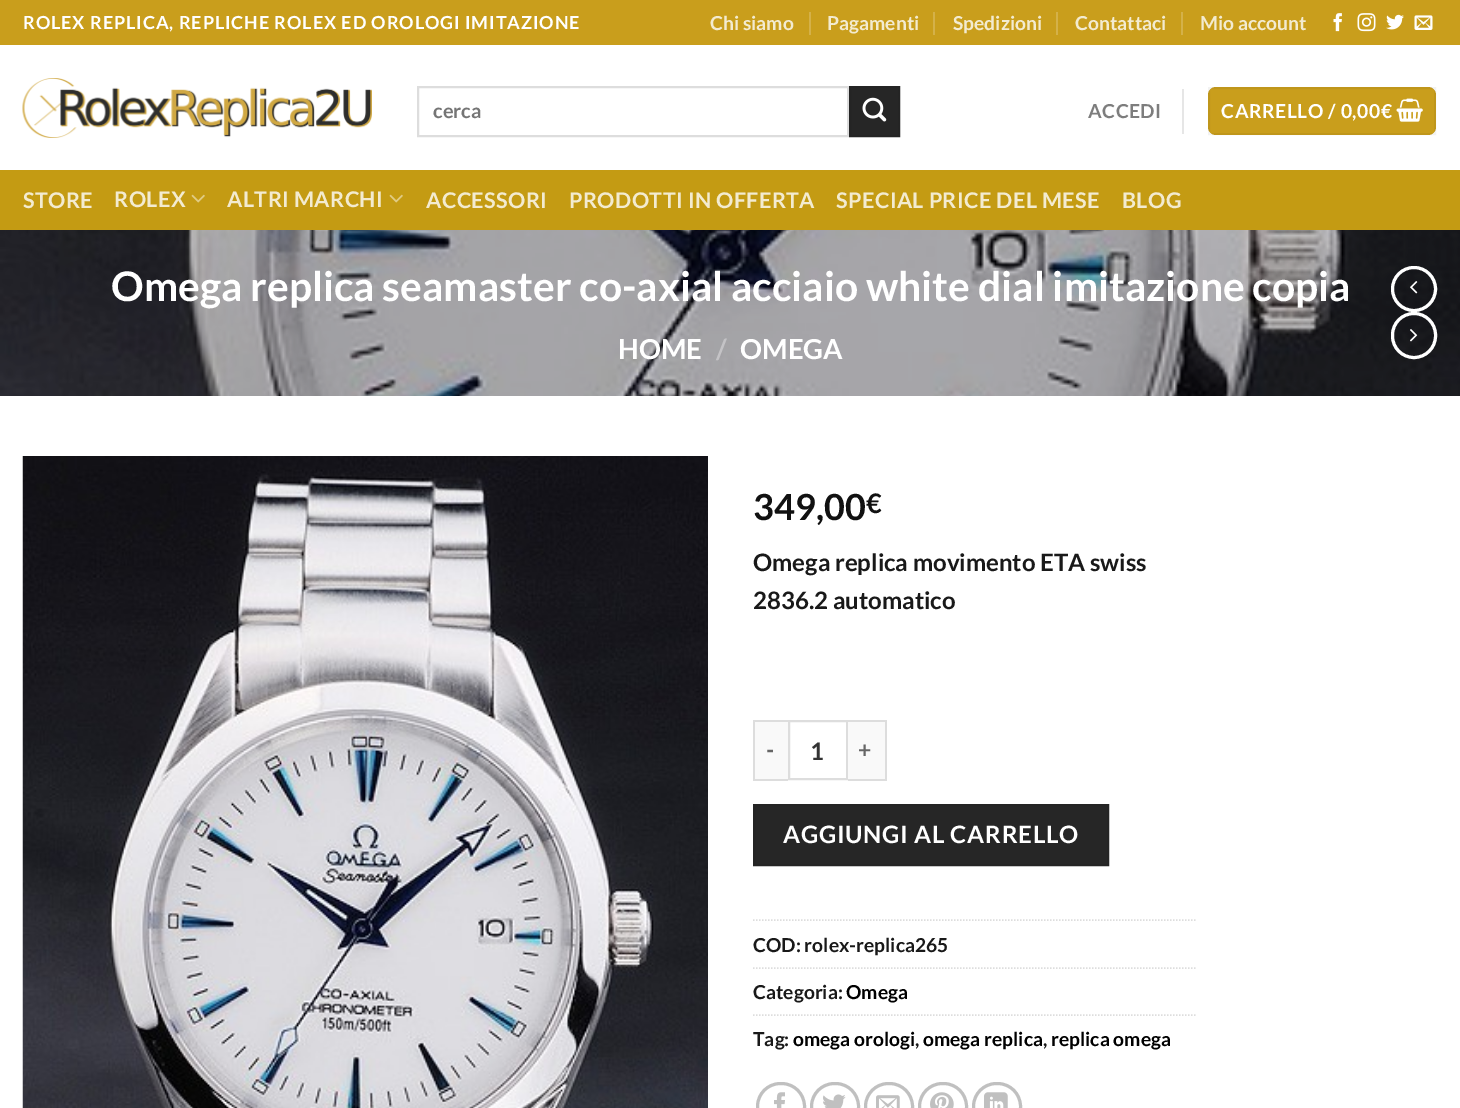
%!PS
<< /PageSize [1460 1108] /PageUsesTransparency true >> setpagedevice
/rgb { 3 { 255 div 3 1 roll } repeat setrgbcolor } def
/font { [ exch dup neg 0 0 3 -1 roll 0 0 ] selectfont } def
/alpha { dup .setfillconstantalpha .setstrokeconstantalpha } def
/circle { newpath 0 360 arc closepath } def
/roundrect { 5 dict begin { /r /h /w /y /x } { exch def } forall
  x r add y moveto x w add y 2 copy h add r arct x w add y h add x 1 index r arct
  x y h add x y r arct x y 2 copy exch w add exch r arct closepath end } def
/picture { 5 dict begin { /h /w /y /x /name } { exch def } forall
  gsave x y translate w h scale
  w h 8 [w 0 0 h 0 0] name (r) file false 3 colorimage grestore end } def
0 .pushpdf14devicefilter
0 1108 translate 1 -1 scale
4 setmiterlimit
255 255 255 rgb
0 0 1460 1108 rectfill
[
  [0 0 1460 45 201 158 28]
  [809 12 2 23 212 177 73]
  [933 12 2 23 212 177 73]
  [1056 12 2 23 212 177 73]
  [1181 12 2 23 212 177 73]
] { aload pop rgb rectfill } forall
(img/1.rgb) 1333 13 9 19 picture
(img/2.rgb) 1357 13 19 19 picture
(img/3.rgb) 1386 14 18 16 picture
(img/4.rgb) 1414 15 19 15 picture
(img/5.rgb) 22 78 350 60 picture
221 221 221 rgb
2 setlinewidth
418 87 430 49 rectstroke
38 38 38 rgb
850 87 moveto 899 87 lineto 899 136 lineto 850 136 lineto closepath gsave fill grestore
36 36 36 rgb
stroke
(img/6.rgb) 862 97 25 25 picture
230 230 230 rgb
1182 89 2 45 rectfill
201 158 28 rgb
1208 87 228 48 8 roundrect fill
0.05 alpha
0 0 0 rgb
1209 88 226 46 rectstroke
1 alpha
(img/7.rgb) 1396 98 27 24 picture
196 155 19 rgb
0 170 1460 60 rectfill
(img/8.rgb) 191 194 14 9 picture
(img/8.rgb) 389 194 14 9 picture
(img/9.rgb) 0 230 1460 166 picture
255 255 255 rgb
3 setlinewidth
1414 289 21.5 circle stroke
(img/10.rgb) 1410 281 8 13 picture
1392.5 313.5 43 44 21.5 roundrect stroke
(img/11.rgb) 1410 329 8 13 picture
(img/12.rgb) 22 456 686 652 picture
[
  [755 722 33 57 249 249 249]
  [753 720 35 2 221 221 221]
  [753 779 35 2 221 221 221]
  [753 720 2 60 221 221 221]
] { aload pop rgb rectfill } forall
2 setlinewidth
789 721 58 58 rectstroke
[
  [848 722 37 57 249 249 249]
  [848 720 39 2 221 221 221]
  [885 720 2 60 221 221 221]
  [848 779 39 2 221 221 221]
] { aload pop rgb rectfill } forall
38 38 38 rgb
754 805 moveto 1108 805 lineto 1108 865 lineto 754 865 lineto closepath gsave fill grestore
36 36 36 rgb
stroke
221 221 221 rgb
1.5 setlinewidth
[1.5 1.5] 0 setdash
753 920 moveto 1195.5 920 lineto stroke
753 968 moveto 1195.5 968 lineto stroke
753 1015 moveto 1195.5 1015 lineto stroke
192 192 192 rgb
3 setlinewidth
[] 0 setdash
757.5 1083.5 47 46 23 roundrect stroke
(img/13.rgb) 774 1092 11 16 picture
811.5 1083.5 47 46 23 roundrect stroke
(img/14.rgb) 823 1094 23 14 picture
865.5 1083.5 47 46 23 roundrect stroke
(img/15.rgb) 876 1095 24 13 picture
919.5 1083.5 47 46 23 roundrect stroke
(img/16.rgb) 930 1092 24 16 picture
973.5 1083.5 47 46 23 roundrect stroke
(img/17.rgb) 984 1092 24 16 picture
/Lato-Bold 18 font
255 255 255 rgb
23 29 moveto 0.9 0 (ROLEX REPLICA, REPLICHE ROLEX ED OROLOGI IMITAZIONE) ashow
/Lato-Bold 19.25 font
243 235 208 rgb
[
  [(Chi siamo) 710 30]
  [(Pagamenti) 827 30]
  [(Spedizioni) 953 30]
  [(Contattaci) 1075 30]
  [(Mio account) 1200 30]
] { aload pop moveto show } forall
/Lato-Bold 20 font
117 117 117 rgb
433 118 moveto (cerca) show
/Lato-Bold 19.25 font
125 125 125 rgb
1088 118 moveto 0.5 0 (ACCEDI) ashow
255 255 255 rgb
1221 118 moveto 0.6 0 (CARRELLO / 0,00€) ashow
/Lato-Bold 21.6 font
243 235 208 rgb
23 208 moveto 0.4 0 (STORE) ashow
114 207 moveto 0.4 0 (ROLEX) ashow
227 207 moveto 0.4 0 (ALTRI MARCHI) ashow
426 208 moveto 0.4 0 (ACCESSORI) ashow
569 208 moveto 0.4 0 (PRODOTTI IN OFFERTA) ashow
836 208 moveto 0.4 0 (SPECIAL PRICE DEL MESE) ashow
1122 208 moveto 0.4 0 (BLOG) ashow
/Lato-Bold 40.8 font
255 255 255 rgb
111 301 moveto (Omega replica seamaster co-axial acciaio white dial imitazione copia) show
/Lato-Bold 27.5 font
618 359 moveto (HOME) show
196 195 198 rgb
716 359 moveto (/) show
255 255 255 rgb
740 359 moveto (OMEGA) show
/Lato-Bold 36 font
17 17 17 rgb
753 520 moveto (349,00) show
/Lato-Bold 27 font
866 513 moveto (€) show
/Lato-Bold 24 font
25 25 25 rgb
753 571 moveto (Omega replica movimento ETA swiss) show
753 609 moveto (2836.2 automatico) show
/Lato-Bold 23 font
102 102 102 rgb
766 758 moveto 1 0 (-) ashow
/Lato-Bold 24 font
51 51 51 rgb
810 760 moveto (1) show
/Lato-Bold 23 font
102 102 102 rgb
858 758 moveto 1 0 (+) ashow
/Lato-Bold 24 font
255 255 255 rgb
783 843 moveto 0.75 0 (AGGIUNGI AL CARRELLO) ashow
/Lato-Bold 19.25 font
25 25 25 rgb
753 952 moveto (COD: rolex-replica265) show
753 999 moveto (Categoria:) show
0 0 0 rgb
846 999 moveto (Omega) show
25 25 25 rgb
753 1046 moveto (Tag:) show
0 0 0 rgb
793 1046 moveto (omega orologi) show
25 25 25 rgb
915 1046 moveto (,) show
0 0 0 rgb
923 1046 moveto (omega replica) show
25 25 25 rgb
1043 1046 moveto (,) show
0 0 0 rgb
1051 1046 moveto (replica omega) show
.poppdf14devicefilter showpage
